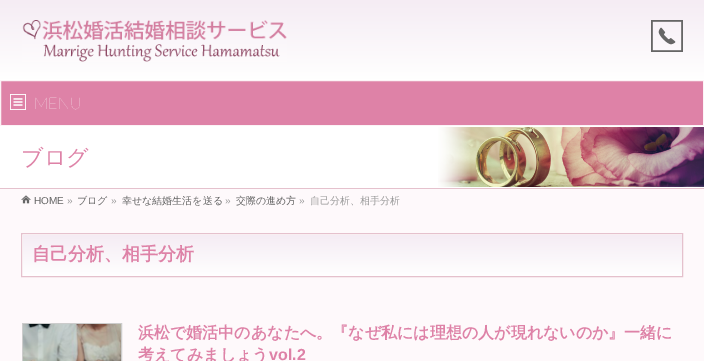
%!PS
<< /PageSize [704 361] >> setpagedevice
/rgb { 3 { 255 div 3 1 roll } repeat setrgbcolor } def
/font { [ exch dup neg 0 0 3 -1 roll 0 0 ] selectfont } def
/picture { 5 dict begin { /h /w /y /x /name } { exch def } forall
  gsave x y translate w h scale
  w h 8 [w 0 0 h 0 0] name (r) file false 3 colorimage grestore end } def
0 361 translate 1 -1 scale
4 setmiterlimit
254 249 251 rgb
0 0 704 361 rectfill
gsave 0 0 moveto 704 0 lineto 704 80 lineto 0 80 lineto closepath clip newpath
<< /ShadingType 2 /ColorSpace /DeviceRGB /Coords [352 0 352 80] /Extend [true true] /Function << /FunctionType 2 /Domain [0 1] /C0 [0.961 0.925 0.957] /C1 [1 1 1] /N 1 >> >> shfill grestore
(img/1.rgb) 22 20 265 42 picture
(img/2.rgb) 651 20 32 32 picture
222 130 167 rgb
0.5 80.5 moveto 703.5 80.5 lineto 703.5 125.5 lineto 0.5 125.5 lineto closepath gsave fill grestore
252 243 246 rgb
stroke
(img/3.rgb) 10 94 16 16 picture
229 193 205 rgb
0 188 704 1 rectfill
255 255 255 rgb
0 126 704 62 rectfill
(img/4.rgb) 438 127 266 60 picture
(img/5.rgb) 21 195 10 9 picture
gsave 23 235 moveto 682 235 lineto 682 276 lineto 23 276 lineto closepath clip newpath
<< /ShadingType 2 /ColorSpace /DeviceRGB /Coords [352 234 352 276] /Extend [true true] /Function << /FunctionType 2 /Domain [0 1] /C0 [0.961 0.925 0.957] /C1 [1 1 1] /N 1 >> >> shfill grestore
gsave
22 234 660 42 rectclip
-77 135 moveto 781 135 lineto 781 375 lineto -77 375 lineto closepath 23 235 moveto 683 235 lineto 683 277 lineto 23 277 lineto closepath eofill
grestore
229 193 205 rgb
21.5 233.5 661 43 rectstroke
204 204 204 rgb
22.5 323.5 99 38 rectstroke
(img/6.rgb) 23 324 98 37 picture
/Lato-ExtraLight 16 font
255 255 255 rgb
34 109 moveto (MENU) show
/WenQuanYiZenHei-Medium 22 font
222 130 167 rgb
21 165 moveto (ブログ) show
/LiberationSans-Regular 10 font
102 102 102 rgb
34 204 moveto (HOME) show
153 153 153 rgb
67 204 moveto (») show
/WenQuanYiZenHei-Medium 10 font
102 102 102 rgb
77 204 moveto (ブログ) show
/LiberationSans-Regular 10 font
153 153 153 rgb
111 204 moveto (») show
/WenQuanYiZenHei-Medium 10 font
102 102 102 rgb
122 204 moveto (幸せな結婚生活を送る) show
/LiberationSans-Regular 10 font
153 153 153 rgb
225 204 moveto (») show
/WenQuanYiZenHei-Medium 10 font
102 102 102 rgb
236 204 moveto (交際の進め方) show
/LiberationSans-Regular 10 font
153 153 153 rgb
299 204 moveto (») show
/WenQuanYiZenHei-Medium 10 font
310 204 moveto (自己分析、相手分析) show
/WenQuanYiZenHei-Bold 18 font
222 130 167 rgb
32 260 moveto (自己分析、相手分析) show
/WenQuanYiZenHei-Bold 16 font
138 338 moveto (浜松で婚活中のあなたへ。『なぜ私には理想の人が現れないのか』一緒に) show
138 360 moveto (考えてみましょう) show
/LiberationSans-Bold 16 font
269 360 moveto (vol.2) show
showpage
